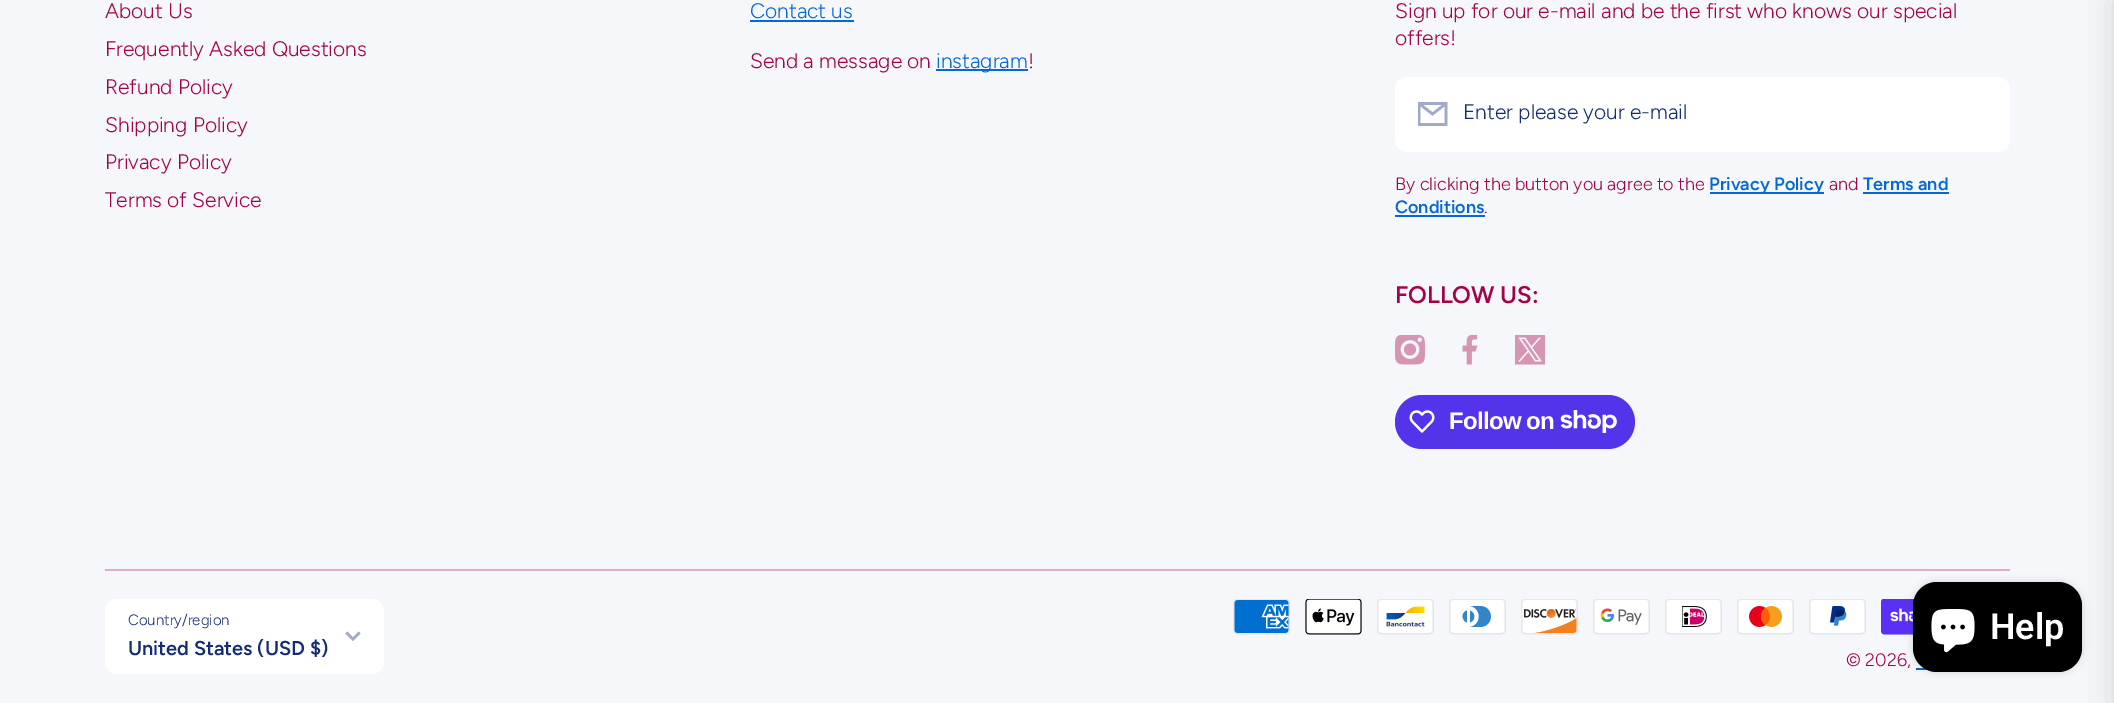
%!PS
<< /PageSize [2114 703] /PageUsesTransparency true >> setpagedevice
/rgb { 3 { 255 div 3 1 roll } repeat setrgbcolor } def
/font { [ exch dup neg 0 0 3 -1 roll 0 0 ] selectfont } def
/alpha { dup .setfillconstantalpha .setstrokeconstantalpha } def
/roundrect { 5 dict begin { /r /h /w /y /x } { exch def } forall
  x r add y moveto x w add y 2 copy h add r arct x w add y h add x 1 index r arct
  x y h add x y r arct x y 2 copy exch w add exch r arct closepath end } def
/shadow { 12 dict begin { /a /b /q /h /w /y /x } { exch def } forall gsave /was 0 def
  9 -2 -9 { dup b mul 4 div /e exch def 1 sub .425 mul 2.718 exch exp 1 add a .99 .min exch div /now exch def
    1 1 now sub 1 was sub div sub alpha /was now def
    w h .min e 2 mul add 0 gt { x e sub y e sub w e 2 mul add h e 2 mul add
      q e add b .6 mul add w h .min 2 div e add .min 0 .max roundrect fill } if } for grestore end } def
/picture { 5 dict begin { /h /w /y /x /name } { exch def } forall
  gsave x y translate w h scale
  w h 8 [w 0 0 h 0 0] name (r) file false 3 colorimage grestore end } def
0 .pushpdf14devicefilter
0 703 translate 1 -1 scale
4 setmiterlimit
246 247 250 rgb
0 0 2114 703 rectfill
5 104 214 rgb
750 20 104 2 rectfill
936 69 92 2 rectfill
255 255 255 rgb
1395 77 615 75 12 roundrect fill
(img/1.rgb) 1418 102 30 24 picture
[
  [1710 192 114 2 5 104 214]
  [1863 192 86 2 5 104 214]
  [1395 215 90 2 5 104 214]
] { aload pop rgb rectfill } forall
(img/2.rgb) 1395 335 30 30 picture
(img/3.rgb) 1462 335 16 30 picture
(img/4.rgb) 1515 335 30 30 picture
84 51 235 rgb
1395 395 240 54 27 roundrect fill
(img/5.rgb) 1409 410 26 23 picture
(img/6.rgb) 1560 410 57 23 picture
221 174 197 rgb
105 569 1905 2 rectfill
255 255 255 rgb
105 599 279 75 12 roundrect fill
(img/7.rgb) 345 631 16 10 picture
(img/8.rgb) 1233 599 57 36 picture
(img/9.rgb) 1305 599 57 36 picture
(img/10.rgb) 1377 599 57 36 picture
(img/11.rgb) 1449 599 57 36 picture
(img/12.rgb) 1521 599 57 36 picture
(img/13.rgb) 1593 599 57 36 picture
(img/14.rgb) 1665 599 57 36 picture
(img/15.rgb) 1737 599 57 36 picture
(img/16.rgb) 1809 599 57 36 picture
(img/17.rgb) 1881 599 33 36 picture
5 104 214 rgb
1916 668 12 2 rectfill
0 0 0 rgb
1913 582 169 90 24 4 0.15 shadow
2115 0 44 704 0 15 0.15 shadow
1913 582 169 90 24 roundrect fill
(img/18.rgb) 1931 609 44 44 picture
/Figtree-Light 21 font
163 3 73 rgb
[
  [(About Us) 105 18]
  [(Frequently Asked Questions) 105 56]
  [(Refund Policy) 105 94]
  [(Shipping Policy) 105 132]
  [(Privacy Policy) 105 169]
  [(Terms of Service) 105 207]
] { aload pop moveto show } forall
5 104 214 rgb
750 18 moveto (Contact us) show
163 3 73 rgb
750 68 moveto (Send a message on) show
5 104 214 rgb
936 68 moveto (instagram) show
163 3 73 rgb
[
  [(!) 1028 68]
  [(Sign up for our e-mail and be the first who knows our special) 1395 18]
  [(offers!) 1395 45]
] { aload pop moveto show } forall
20 44 115 rgb
1463 119 moveto (Enter please your e-mail) show
/Figtree-Light 18 font
163 3 73 rgb
1395 190 moveto (By clicking the button you agree to the) show
/Figtree-SemiBold 18 font
5 104 214 rgb
1709 190 moveto (Privacy Policy) show
/Figtree-Light 18 font
163 3 73 rgb
1829 190 moveto (and) show
/Figtree-SemiBold 18 font
5 104 214 rgb
1863 190 moveto (Terms and) show
1395 213 moveto (Conditions) show
/Figtree-Light 18 font
163 3 73 rgb
1484 213 moveto (.) show
/Figtree-SemiBold 24 font
1395 303 moveto (FOLLOW US:) show
/LiberationSans-Bold 24 font
255 255 255 rgb
1449 429 moveto -0.75 0 (Follow on) ashow
/Figtree-Light 15 font
20 44 115 rgb
128 625 moveto (Country/region) show
/Figtree-SemiBold 20 font
128 655 moveto (United States \(USD $\)) show
/Figtree-Light 18 font
163 3 73 rgb
1846 666 moveto (© 2026,) show
/Roboto-SemiBold 36 font
255 255 255 rgb
1990 639 moveto (Help) show
.poppdf14devicefilter showpage
